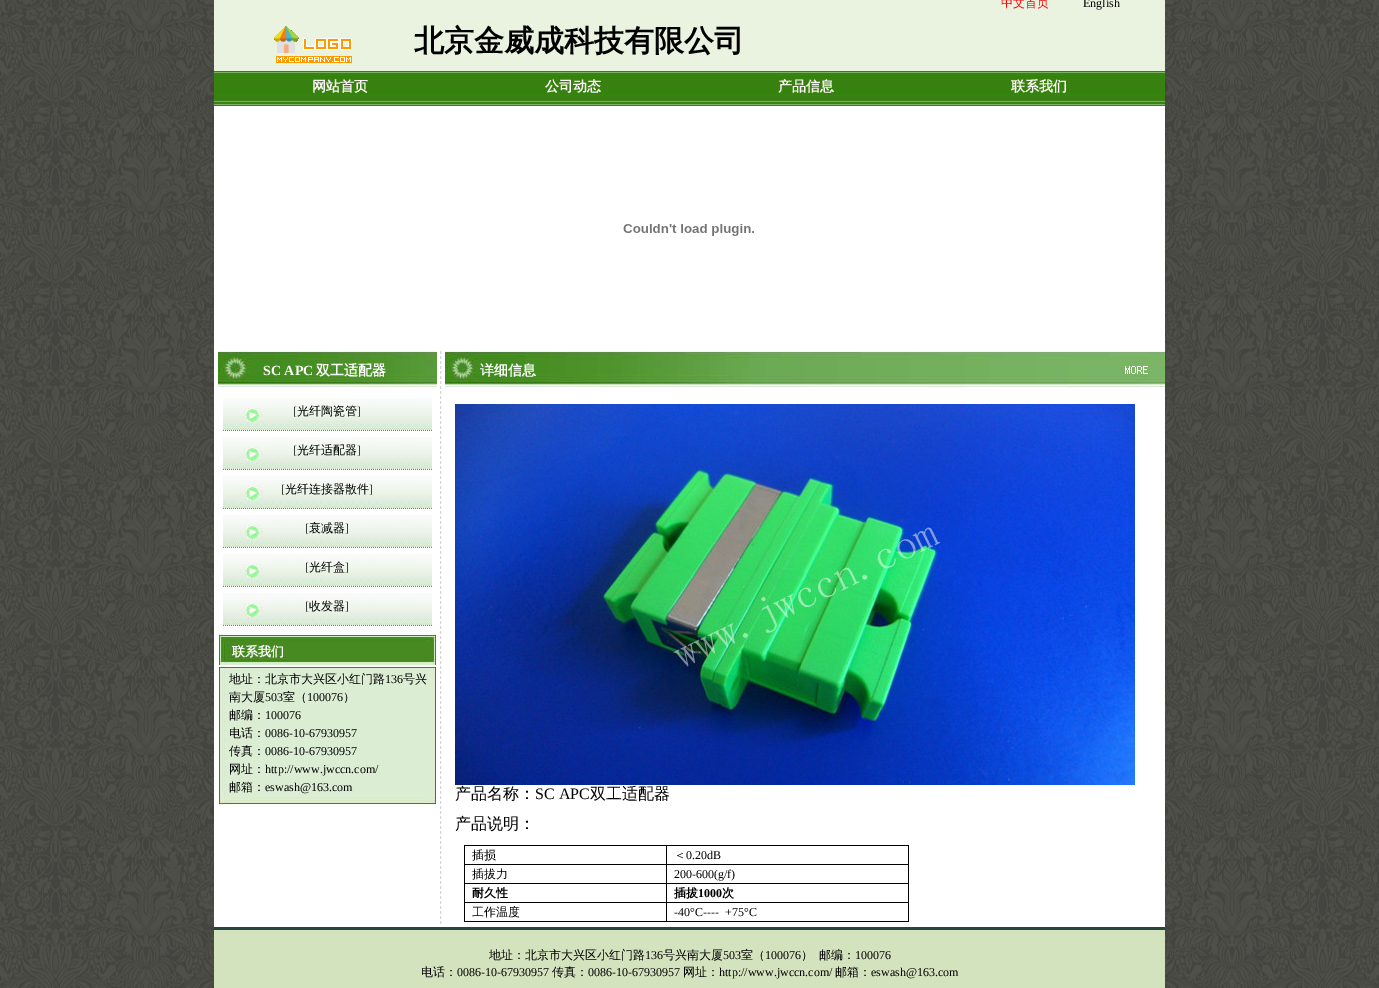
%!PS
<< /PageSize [1379 988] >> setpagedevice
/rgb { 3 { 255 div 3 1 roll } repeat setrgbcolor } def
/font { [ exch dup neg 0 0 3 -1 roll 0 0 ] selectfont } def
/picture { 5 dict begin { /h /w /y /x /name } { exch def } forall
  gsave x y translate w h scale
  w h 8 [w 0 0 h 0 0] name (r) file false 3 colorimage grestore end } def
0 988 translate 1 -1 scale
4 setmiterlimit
255 255 255 rgb
0 0 1379 988 rectfill
(img/1.rgb) 0 0 1379 988 picture
214 106 951 821 rectfill
234 243 224 rgb
214 0 951 71 rectfill
(img/2.rgb) 274 26 78 37 picture
(img/3.rgb) 214 71 951 35 picture
(img/4.rgb) 623 224 131 12 picture
(img/5.rgb) 218 351 219 39 picture
(img/6.rgb) 223 398 209 33 picture
(img/6.rgb) 223 437 209 33 picture
(img/6.rgb) 223 476 209 33 picture
(img/6.rgb) 223 515 209 33 picture
(img/6.rgb) 223 554 209 33 picture
(img/6.rgb) 223 593 209 33 picture
(img/7.rgb) 219 633 217 35 picture
(img/8.rgb) 219 668 217 130 picture
(img/9.rgb) 219 798 217 8 picture
215 215 215 rgb
[3 2] 0 setdash
440.5 351 moveto 440.5 924 lineto stroke
(img/10.rgb) 445 351 720 39 picture
(img/11.rgb) 1125 366 23 8 picture
(img/12.rgb) 455 404 680 381 picture
[
  [464 845 445 1 0 0 0]
  [908 864 1 58 0 0 0]
  [908 845 1 20 0 0 0]
  [666 921 243 1 0 0 0]
  [666 902 1 20 0 0 0]
  [666 902 243 1 0 0 0]
  [666 883 1 20 0 0 0]
  [666 883 243 1 0 0 0]
  [666 864 1 20 0 0 0]
  [666 864 243 1 0 0 0]
  [666 845 1 20 0 0 0]
  [464 921 203 1 0 0 0]
  [464 902 1 20 0 0 0]
  [464 902 203 1 0 0 0]
  [464 883 1 20 0 0 0]
  [464 883 203 1 0 0 0]
  [464 864 1 20 0 0 0]
  [464 864 203 1 0 0 0]
  [464 845 1 20 0 0 0]
  [214 927 951 3 40 70 63]
  [214 930 951 58 211 227 190]
] { aload pop rgb rectfill } forall
/WenQuanYiZenHei-Medium 12 font
255 0 0 rgb
1001 7 moveto (中文首页) show
/LiberationSerif-Regular 12 font
0 0 0 rgb
1083 7 moveto (English) show
/WenQuanYiZenHei-Bold 30 font
414 51 moveto (北京金威成科技有限公司) show
/WenQuanYiZenHei-Bold 14 font
255 248 248 rgb
[
  [(网站首页) 312 91]
  [(公司动态) 545 91]
  [(产品信息) 778 91]
  [(联系我们) 1011 91]
] { aload pop moveto show } forall
/LiberationSerif-Bold 14 font
255 255 255 rgb
263 375 moveto (SC APC) show
/WenQuanYiZenHei-Bold 14 font
316 375 moveto (双工适配器) show
/LiberationSerif-Regular 12 font
0 0 0 rgb
293 415 moveto ([) show
/WenQuanYiZenHei-Medium 12 font
297 415 moveto (光纤陶瓷管) show
/LiberationSerif-Regular 12 font
357 415 moveto (]) show
293 454 moveto ([) show
/WenQuanYiZenHei-Medium 12 font
297 454 moveto (光纤适配器) show
/LiberationSerif-Regular 12 font
357 454 moveto (]) show
281 493 moveto ([) show
/WenQuanYiZenHei-Medium 12 font
285 493 moveto (光纤连接器散件) show
/LiberationSerif-Regular 12 font
369 493 moveto (]) show
305 532 moveto ([) show
/WenQuanYiZenHei-Medium 12 font
309 532 moveto (衰减器) show
/LiberationSerif-Regular 12 font
345 532 moveto (]) show
305 571 moveto ([) show
/WenQuanYiZenHei-Medium 12 font
309 571 moveto (光纤盒) show
/LiberationSerif-Regular 12 font
345 571 moveto (]) show
305 610 moveto ([) show
/WenQuanYiZenHei-Medium 12 font
309 610 moveto (收发器) show
/LiberationSerif-Regular 12 font
345 610 moveto (]) show
/WenQuanYiZenHei-Bold 13 font
255 255 255 rgb
232 656 moveto (联系我们) show
/WenQuanYiZenHei-Medium 12 font
0 0 0 rgb
229 683 moveto (地址：北京市大兴区小红门路) show
/LiberationSerif-Regular 12 font
385 683 moveto (136) show
/WenQuanYiZenHei-Medium 12 font
403 683 moveto (号兴) show
229 701 moveto (南大厦) show
/LiberationSerif-Regular 12 font
265 701 moveto (503) show
/WenQuanYiZenHei-Medium 12 font
283 701 moveto (室（) show
/LiberationSerif-Regular 12 font
307 701 moveto (100076) show
/WenQuanYiZenHei-Medium 12 font
343 701 moveto (）) show
229 719 moveto (邮编：) show
/LiberationSerif-Regular 12 font
265 719 moveto (100076) show
/WenQuanYiZenHei-Medium 12 font
229 737 moveto (电话：) show
/LiberationSerif-Regular 12 font
265 737 moveto (0086-10-67930957) show
/WenQuanYiZenHei-Medium 12 font
229 755 moveto (传真：) show
/LiberationSerif-Regular 12 font
265 755 moveto (0086-10-67930957) show
/WenQuanYiZenHei-Medium 12 font
229 773 moveto (网址：) show
/LiberationSerif-Regular 12 font
265 773 moveto (http://www.jwccn.com/) show
/WenQuanYiZenHei-Medium 12 font
229 791 moveto (邮箱：) show
/LiberationSerif-Regular 12 font
265 791 moveto (eswash@163.com) show
/WenQuanYiZenHei-Bold 14 font
255 255 255 rgb
480 375 moveto (详细信息) show
/WenQuanYiZenHei-Medium 16 font
0 0 0 rgb
455 799 moveto (产品名称：) show
/LiberationSerif-Regular 16 font
535 799 moveto (SC APC) show
/WenQuanYiZenHei-Medium 16 font
590 799 moveto (双工适配器) show
455 829 moveto (产品说明：) show
/WenQuanYiZenHei-Medium 12 font
472 859 moveto (插损) show
674 859 moveto (＜) show
/LiberationSerif-Regular 12 font
686 859 moveto (0.20dB) show
/WenQuanYiZenHei-Medium 12 font
472 878 moveto (插拔力) show
/LiberationSerif-Regular 12 font
674 878 moveto (200-600\(g/f\)) show
/WenQuanYiZenHei-Bold 12 font
472 897 moveto (耐久性) show
674 897 moveto (插拔) show
/LiberationSerif-Bold 12 font
698 897 moveto (1000) show
/WenQuanYiZenHei-Bold 12 font
722 897 moveto (次) show
/WenQuanYiZenHei-Medium 12 font
472 916 moveto (工作温度) show
/LiberationSerif-Regular 12 font
674 916 moveto (-40°C----) show
725 916 moveto (+75°C) show
/WenQuanYiZenHei-Medium 12 font
489 959 moveto (地址：北京市大兴区小红门路) show
/LiberationSerif-Regular 12 font
645 959 moveto (136) show
/WenQuanYiZenHei-Medium 12 font
663 959 moveto (号兴南大厦) show
/LiberationSerif-Regular 12 font
723 959 moveto (503) show
/WenQuanYiZenHei-Medium 12 font
741 959 moveto (室（) show
/LiberationSerif-Regular 12 font
765 959 moveto (100076) show
/WenQuanYiZenHei-Medium 12 font
801 959 moveto (）) show
819 959 moveto (邮编：) show
/LiberationSerif-Regular 12 font
855 959 moveto (100076) show
/WenQuanYiZenHei-Medium 12 font
421 976 moveto (电话：) show
/LiberationSerif-Regular 12 font
457 976 moveto (0086-10-67930957) show
/WenQuanYiZenHei-Medium 12 font
552 976 moveto (传真：) show
/LiberationSerif-Regular 12 font
588 976 moveto (0086-10-67930957) show
/WenQuanYiZenHei-Medium 12 font
683 976 moveto (网址：) show
/LiberationSerif-Regular 12 font
719 976 moveto (http://www.jwccn.com/) show
/WenQuanYiZenHei-Medium 12 font
835 976 moveto (邮箱：) show
/LiberationSerif-Regular 12 font
871 976 moveto (eswash@163.com) show
showpage
